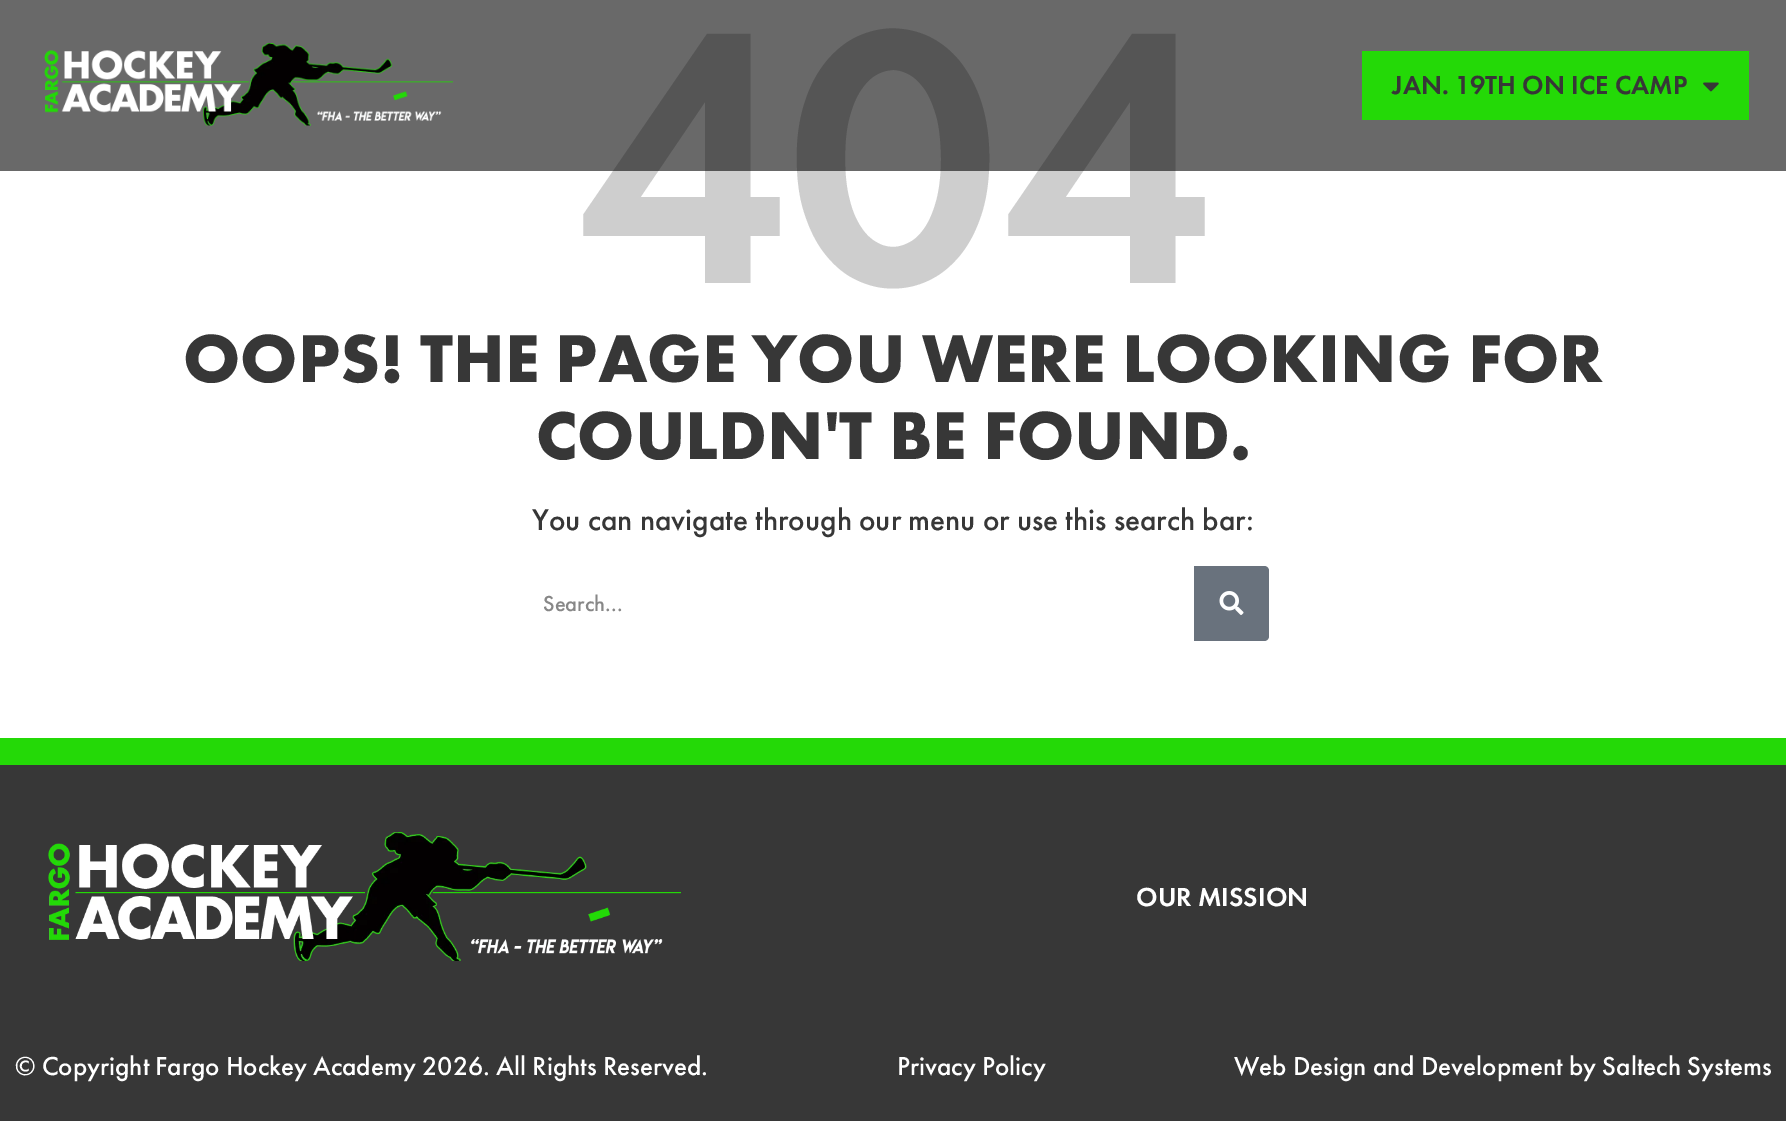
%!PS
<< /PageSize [1786 1121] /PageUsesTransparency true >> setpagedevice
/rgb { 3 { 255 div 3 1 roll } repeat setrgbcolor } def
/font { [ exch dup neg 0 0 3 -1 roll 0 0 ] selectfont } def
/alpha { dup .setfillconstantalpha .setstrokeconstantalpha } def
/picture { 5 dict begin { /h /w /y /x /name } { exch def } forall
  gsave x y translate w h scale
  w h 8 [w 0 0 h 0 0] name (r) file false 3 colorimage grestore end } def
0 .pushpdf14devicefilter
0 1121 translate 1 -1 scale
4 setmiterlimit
255 255 255 rgb
0 0 1786 1121 rectfill
105 114 125 rgb
1194 566 moveto 1264 566 lineto 1267 566 1269 568 1269 571 curveto 1269 636 lineto 1269 639 1267 641 1264 641 curveto 1194 641 lineto closepath fill
(img/1.rgb) 1219 591 25 24 picture
55 55 55 rgb
0 765 1786 356 rectfill
36 217 7 rgb
0 738 1786 27 rectfill
(img/4.rgb) 48 832 633 129 picture
/FuturaPT-Medium 374 font
206 206 206 rgb
575 283 moveto (404) show
/FuturaPT-Bold 70.2 font
55 55 55 rgb
183 382 moveto (OOPS! THE PAGE YOU WERE LOOKING FOR) show
536 459 moveto (COULDN'T BE FOUND.) show
/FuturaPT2-Medium 31.2 font
532 530 moveto (You can navigate through our menu or use this search bar:) show
/FuturaPT2-Medium 22.5 font
135 135 135 rgb
543 611 moveto (Search...) show
0.59 alpha
0 0 0 rgb
0 0 1786 171 rectfill
1 alpha
(img/2.rgb) 44 43 409 83 picture
36 217 7 rgb
1362 51 387 69 rectfill
/FuturaPT-Medium 27 font
55 55 55 rgb
1392 94 moveto (JAN. 19TH ON ICE CAMP) show
(img/3.rgb) 1703 82 16 10 picture
255 255 255 rgb
1136 906 moveto (OUR MISSION) show
/FuturaPT2-Medium 27 font
[
  [(© Copyright Fargo Hockey Academy 2026. All Rights Reserved.) 15 1075]
  [(Privacy Policy) 897 1075]
  [(Web Design and Development by Saltech Systems) 1234 1075]
] { aload pop moveto show } forall
.poppdf14devicefilter showpage
